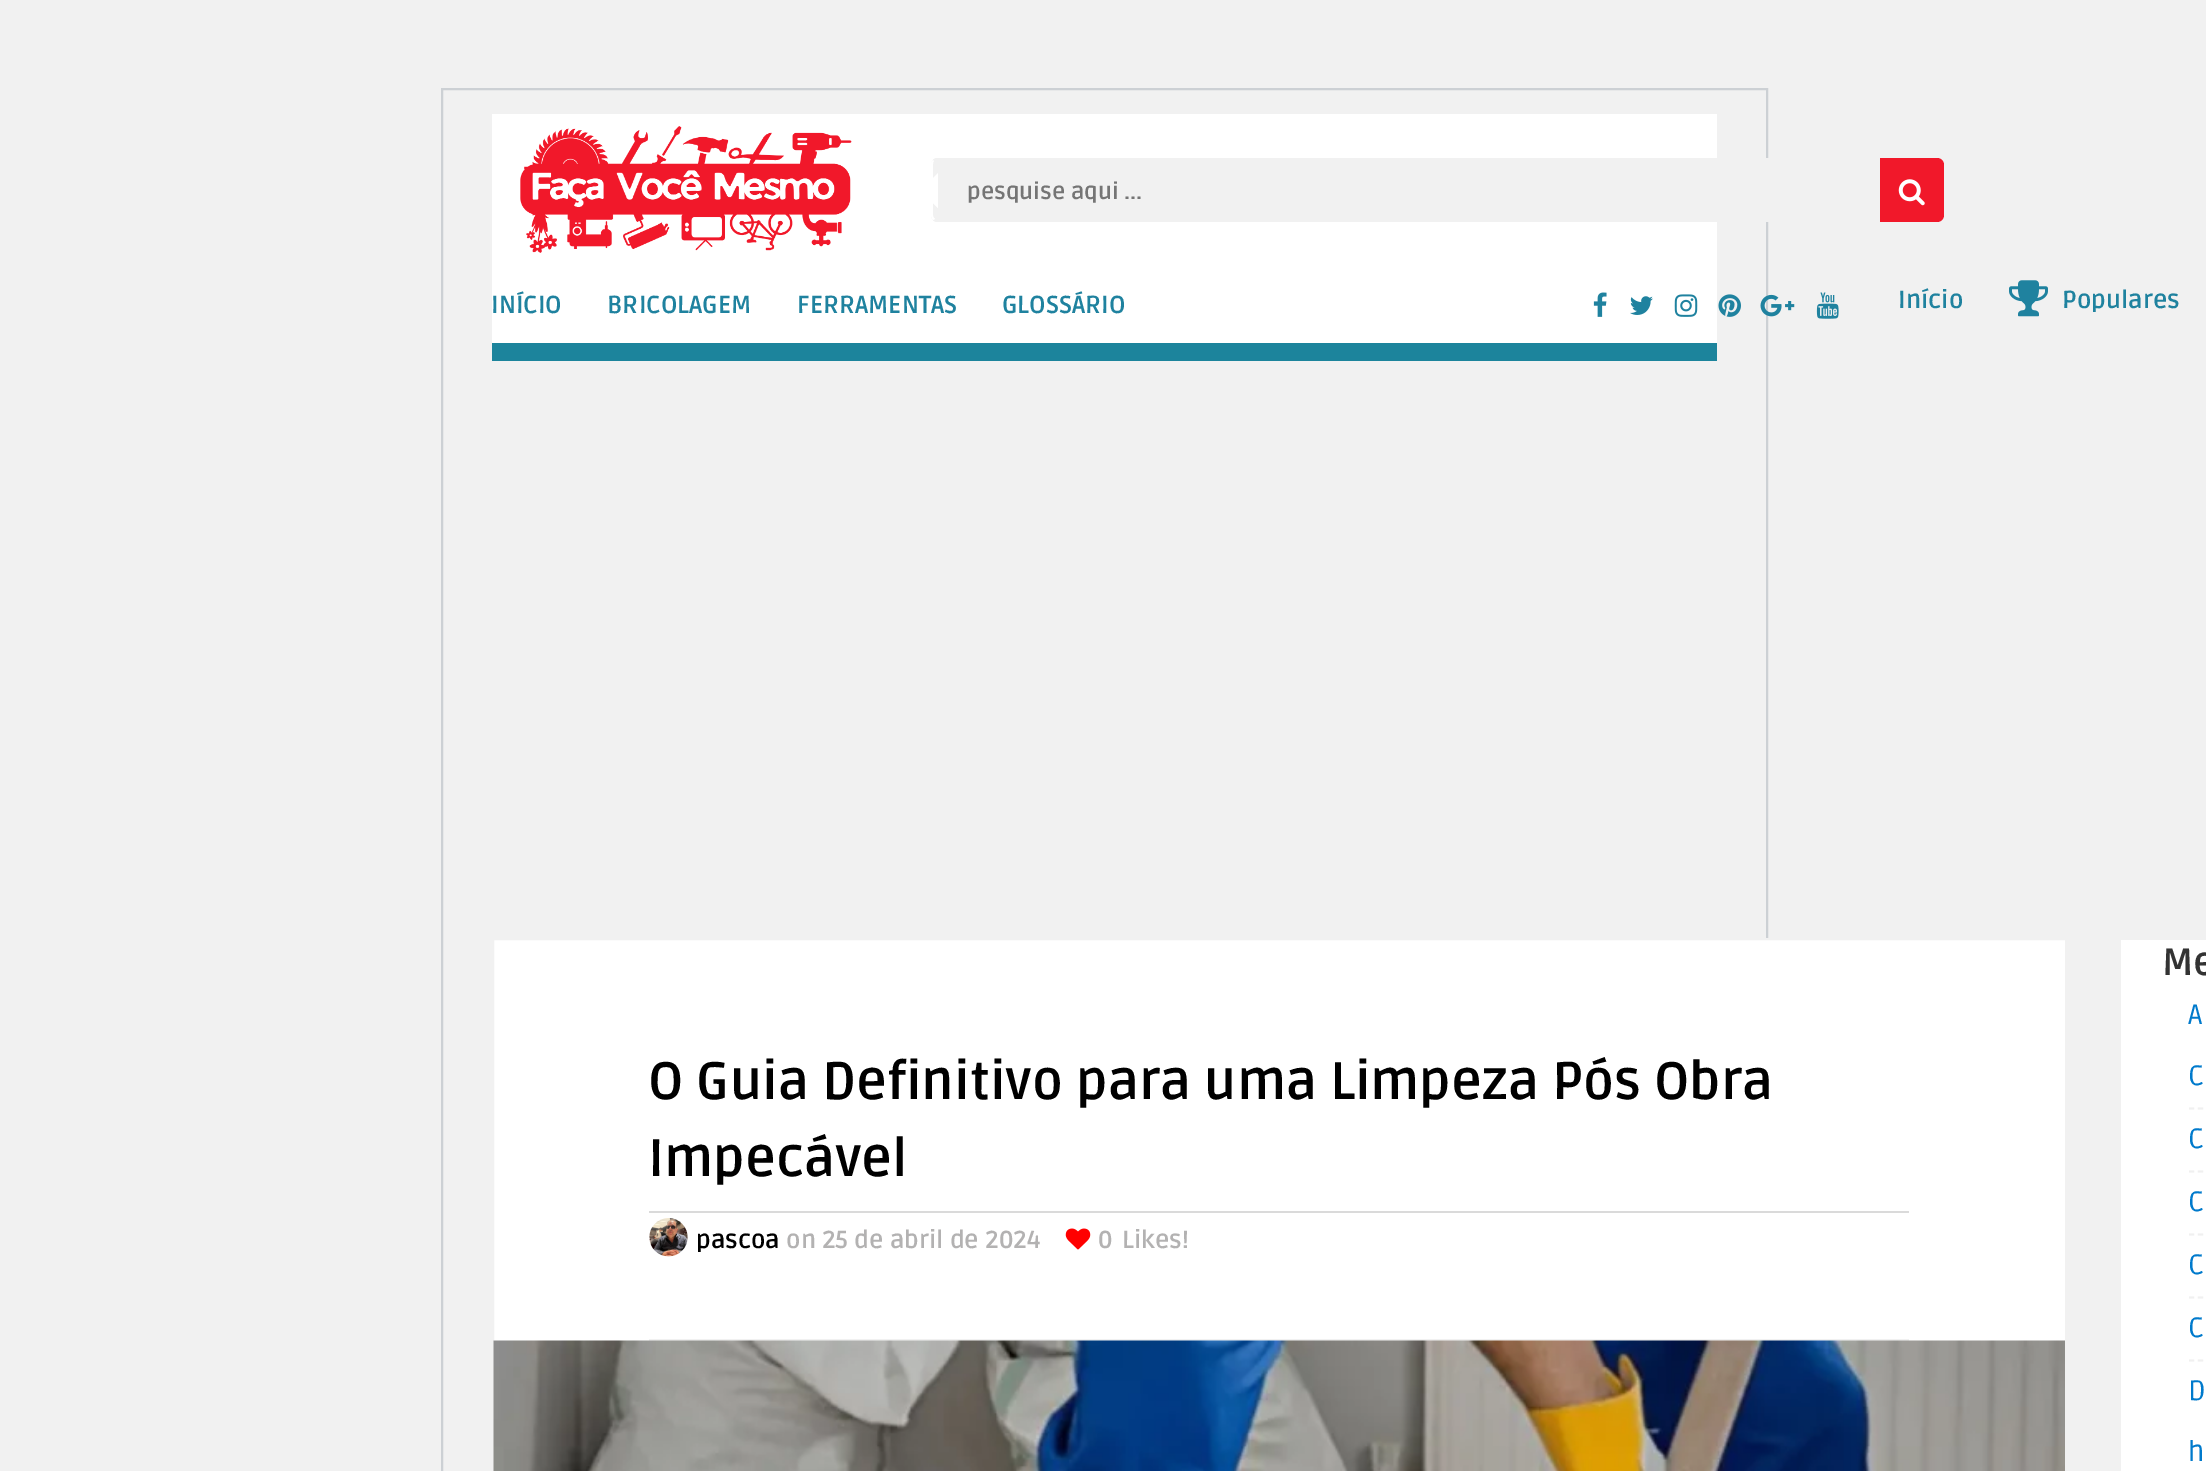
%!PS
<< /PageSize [2206 1471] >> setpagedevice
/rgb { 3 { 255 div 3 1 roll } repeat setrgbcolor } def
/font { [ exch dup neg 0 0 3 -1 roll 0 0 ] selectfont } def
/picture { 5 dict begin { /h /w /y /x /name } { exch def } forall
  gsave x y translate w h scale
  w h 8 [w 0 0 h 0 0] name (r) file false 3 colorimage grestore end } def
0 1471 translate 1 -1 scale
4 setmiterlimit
241 241 241 rgb
0 0 2206 1471 rectfill
204 208 212 rgb
2 setlinewidth
442 89 1325 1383 rectstroke
255 255 255 rgb
492 114 1225 229 rectfill
28 132 156 rgb
492 343 1225 18 rectfill
(img/1.rgb) 1593 292 14 25 picture
(img/2.rgb) 1630 296 23 19 picture
(img/3.rgb) 1674 294 24 23 picture
(img/4.rgb) 1718 294 23 23 picture
(img/5.rgb) 1760 294 35 23 picture
(img/6.rgb) 1816 292 23 27 picture
(img/7.rgb) 520 126 332 127 picture
241 241 241 rgb
938 158 moveto 1880 158 lineto 1880 222 lineto 938 222 lineto 934 222 931 219 931 215 curveto 931 165 lineto 931 161 934 158 938 158 curveto closepath fill
938 158 moveto 936 158 934 159 933 160 curveto 934 161 lineto 935 160 936 159 938 159 curveto 1878 159 lineto 1879 158 lineto closepath fill
1879 222 moveto 938 222 lineto 936 222 934 221 933 220 curveto 935 219 lineto 935 220 937 220 938 220 curveto 1877 220 lineto closepath fill
255 255 255 rgb
931 164 moveto 931 215 lineto 931 217 932 219 933 220 curveto 935 219 lineto 934 218 933 217 933 215 curveto 933 164 lineto 933 163 933 162 934 161 curveto 933 160 lineto 932 161 931 162 931 164 curveto closepath fill
938 173 moveto 938 208 lineto 920.5 191 lineto closepath fill
241 24 42 rgb
1880 158 moveto 1937 158 lineto 1941 158 1944 161 1944 165 curveto 1944 215 lineto 1944 219 1941 222 1937 222 curveto 1880 222 lineto closepath fill
(img/8.rgb) 1898 179 27 27 picture
(img/9.rgb) 2009 280 39 37 picture
255 255 255 rgb
494 940 1571 401 rectfill
241 241 241 rgb
493 939 1573 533 rectstroke
649 1339 1260 2 rectfill
218 218 218 rgb
649 1211 1260 2 rectfill
(img/10.rgb) 649 1218 39 39 picture
(img/11.rgb) 1065 1228 26 22 picture
(img/12.rgb) 493 1340 1572 131 picture
255 255 255 rgb
2121 940 85 531 rectfill
240 240 240 rgb
1.8 setlinewidth
[5.25 3.57] 0 setdash
2189 1108.5 moveto 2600.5 1108.5 lineto stroke
2189 1171.5 moveto 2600.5 1171.5 lineto stroke
2189 1234.5 moveto 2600.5 1234.5 lineto stroke
2189 1297.5 moveto 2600.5 1297.5 lineto stroke
2189 1360.5 moveto 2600.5 1360.5 lineto stroke
/Ruda-Bold 24.5 font
31 130 159 rgb
[
  [(INÍCIO) 491 313]
  [(BRICOLAGEM) 607 313]
  [(FERRAMENTAS) 797 313]
  [(GLOSSÁRIO) 1002 313]
] { aload pop moveto show } forall
/Ruda-Bold 22.75 font
117 117 117 rgb
967 199 moveto (pesquise aqui ...) show
/Ruda-Bold 24.5 font
31 130 159 rgb
1898 308 moveto (Início) show
2062 308 moveto (Populares) show
/Ruda-Bold 52.5 font
0 0 0 rgb
648 1099 moveto (O Guia Definitivo para uma Limpeza Pós Obra) show
648 1176 moveto (Impecável) show
/Ruda-Bold 24.5 font
696 1248 moveto (pascoa) show
179 178 178 rgb
[
  [(on 25 de abril de 2024) 786 1248]
  [(0) 1098 1248]
  [(Likes!) 1122 1248]
] { aload pop moveto show } forall
/Ruda-Bold 38 font
51 51 51 rgb
2162 975 moveto (Me) show
/Ruda-Regular 28 font
0 122 204 rgb
[
  [(A) 2188 1024]
  [(C) 2188 1085]
  [(C) 2188 1148]
  [(C) 2188 1211]
  [(C) 2188 1274]
  [(C) 2188 1337]
  [(D) 2188 1400]
  [(h) 2188 1461]
] { aload pop moveto show } forall
showpage
